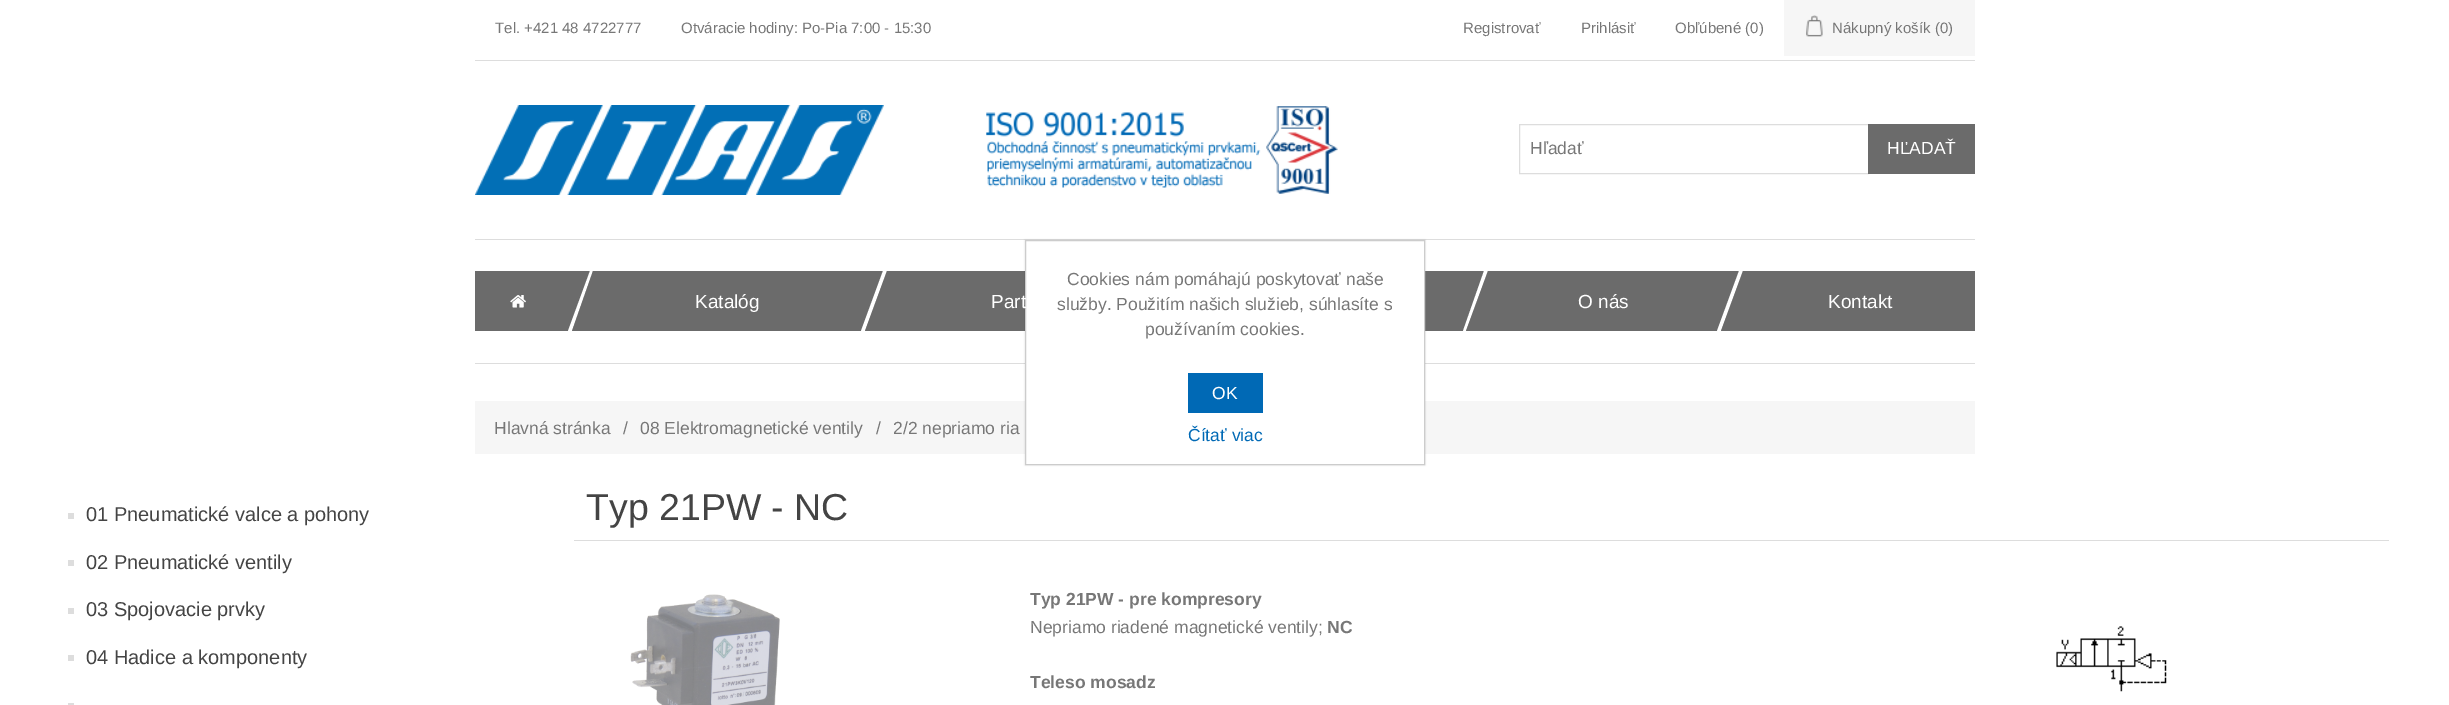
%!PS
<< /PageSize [2449 705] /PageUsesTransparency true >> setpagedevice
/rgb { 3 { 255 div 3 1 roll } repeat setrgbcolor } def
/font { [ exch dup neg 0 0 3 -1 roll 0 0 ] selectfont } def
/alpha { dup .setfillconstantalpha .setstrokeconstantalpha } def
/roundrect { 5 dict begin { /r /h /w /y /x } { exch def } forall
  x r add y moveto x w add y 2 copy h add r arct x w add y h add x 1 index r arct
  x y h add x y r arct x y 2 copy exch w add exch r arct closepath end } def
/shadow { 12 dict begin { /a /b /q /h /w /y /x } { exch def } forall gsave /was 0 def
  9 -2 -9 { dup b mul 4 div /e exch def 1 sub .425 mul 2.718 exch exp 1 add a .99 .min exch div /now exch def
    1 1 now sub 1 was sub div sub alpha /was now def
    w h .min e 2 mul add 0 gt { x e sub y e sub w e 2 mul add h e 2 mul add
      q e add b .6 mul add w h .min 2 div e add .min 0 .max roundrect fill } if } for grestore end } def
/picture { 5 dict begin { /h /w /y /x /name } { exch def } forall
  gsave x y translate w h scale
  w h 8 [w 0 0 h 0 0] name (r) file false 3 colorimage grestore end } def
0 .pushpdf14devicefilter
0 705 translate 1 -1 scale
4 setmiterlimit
255 255 255 rgb
0 0 2449 705 rectfill
221 221 221 rgb
475 60 1500 1 rectfill
246 246 246 rgb
1784 0 191 56 rectfill
(img/1.rgb) 1806 15 17 22 picture
(img/2.rgb) 475 105 409 90 picture
(img/3.rgb) 986 106 352 88 picture
221 221 221 rgb
1519.5 124.5 349 49 rectstroke
[
  [1868 124 107 50 107 107 107]
  [475 239 1500 1 221 221 221]
  [475 363 1500 1 221 221 221]
] { aload pop rgb rectfill } forall
gsave
475 271 1500 60 rectclip
107 107 107 rgb
461 271 moveto 593 271 lineto 572 331 lineto 439 331 lineto closepath fill
grestore
255 255 255 rgb
590 271 moveto 593 271 lineto 572 331 lineto 568 331 lineto closepath fill
(img/4.rgb) 510 295 16 13 picture
107 107 107 rgb
593 271 moveto 887 271 lineto 865 331 lineto 572 331 lineto closepath fill
255 255 255 rgb
883 271 moveto 887 271 lineto 865 331 lineto 861 331 lineto closepath fill
107 107 107 rgb
887 271 moveto 1186 271 lineto 1164 331 lineto 865 331 lineto closepath fill
1186 271 moveto 1488 271 lineto 1466 331 lineto 1164 331 lineto closepath fill
255 255 255 rgb
1484 271 moveto 1488 271 lineto 1466 331 lineto 1463 331 lineto closepath fill
107 107 107 rgb
1488 271 moveto 1743 271 lineto 1721 331 lineto 1466 331 lineto closepath fill
255 255 255 rgb
1739 271 moveto 1743 271 lineto 1721 331 lineto 1717 331 lineto closepath fill
gsave
475 271 1500 60 rectclip
107 107 107 rgb
1743 271 moveto 2011 271 lineto 1989 331 lineto 1721 331 lineto closepath fill
grestore
[
  [475 401 1500 53 246 246 246]
  [68 513 6 6 221 221 221]
  [68 560 6 6 221 221 221]
  [68 608 6 6 221 221 221]
  [68 655 6 6 221 221 221]
  [68 703 6 2 221 221 221]
  [574 540 1815 1 221 221 221]
] { aload pop rgb rectfill } forall
(img/5.rgb) 630 594 150 111 picture
(img/6.rgb) 2056 626 111 66 picture
0 0 0 rgb
1025 240 400 225 0 1 0.15 shadow
255 255 255 rgb
1025.5 240.5 moveto 1424.5 240.5 lineto 1424.5 464.5 lineto 1025.5 464.5 lineto closepath gsave fill grestore
204 204 204 rgb
stroke
0 105 181 rgb
1188 373 75 40 rectfill
/LiberationSans-Regular 15 font
119 119 119 rgb
[
  [(Tel. +421 48 4722777) 495 33]
  [(Otváracie hodiny: Po-Pia 7:00 - 15:30) 681 33]
  [(Registrovať) 1463 33]
  [(Prihlásiť) 1581 33]
  [(Obľúbené \(0\)) 1675 33]
  [(Nákupný košík \(0\)) 1832 33]
] { aload pop moveto show } forall
/LiberationSans-Regular 17.5 font
1530 154 moveto (Hľadať) show
255 255 255 rgb
1887 154 moveto (HĽADAŤ) show
/LiberationSans-Regular 19 font
[
  [(Katalóg) 695 308]
  [(Part) 991 308]
  [(O nás) 1578 308]
  [(Kontakt) 1828 308]
] { aload pop moveto show } forall
/LiberationSans-Regular 17.5 font
119 119 119 rgb
[
  [(Hlavná stránka) 494 434]
  [(/) 623 434]
  [(08 Elektromagnetické ventily) 640 434]
  [(/) 876 434]
  [(2/2 nepriamo ria) 893 434]
] { aload pop moveto show } forall
/LiberationSans-Regular 20 font
68 68 68 rgb
[
  [(01 Pneumatické valce a pohony) 86 521]
  [(02 Pneumatické ventily) 86 569]
  [(03 Spojovacie prvky) 86 616]
  [(04 Hadice a komponenty) 86 664]
] { aload pop moveto show } forall
/LiberationSans-Regular 37.5 font
586 520 moveto (Typ 21PW - NC) show
/LiberationSans-Bold 17.5 font
119 119 119 rgb
1030 605 moveto (Typ 21PW - pre kompresory) show
/LiberationSans-Regular 17.5 font
1030 633 moveto (Nepriamo riadené magnetické ventily;) show
/LiberationSans-Bold 17.5 font
1327 633 moveto (NC) show
1030 688 moveto (Teleso mosadz) show
/LiberationSans-Regular 17.5 font
[
  [(Cookies nám pomáhajú poskytovať naše) 1067 285]
  [(služby. Použitím našich služieb, súhlasíte s) 1057 310]
  [(používaním cookies.) 1145 335]
] { aload pop moveto show } forall
255 255 255 rgb
1212 399 moveto (OK) show
0 105 181 rgb
1188 441 moveto (Čítať viac) show
.poppdf14devicefilter showpage
